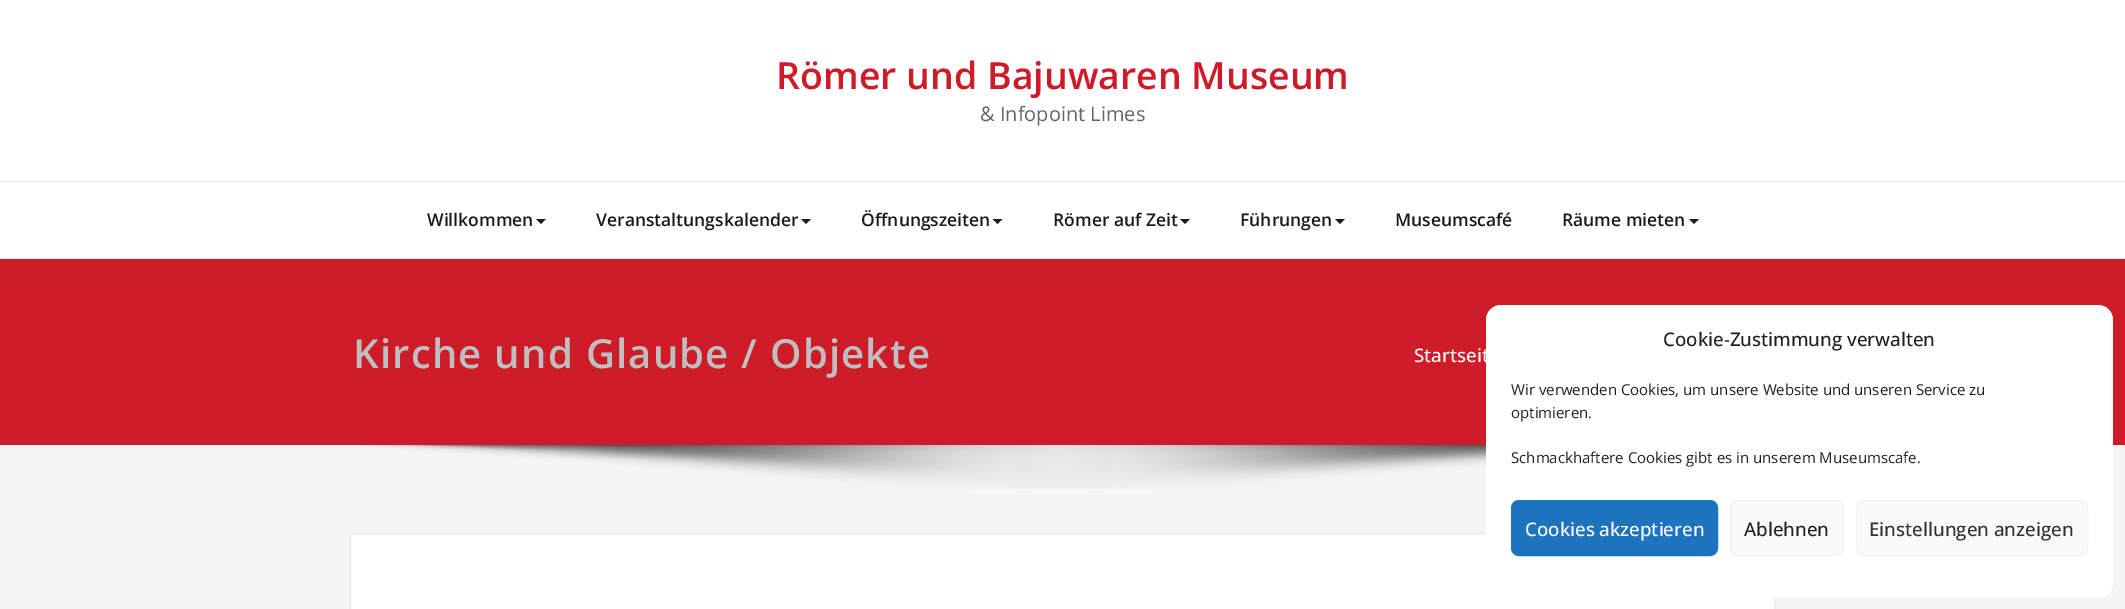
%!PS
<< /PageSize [2125 609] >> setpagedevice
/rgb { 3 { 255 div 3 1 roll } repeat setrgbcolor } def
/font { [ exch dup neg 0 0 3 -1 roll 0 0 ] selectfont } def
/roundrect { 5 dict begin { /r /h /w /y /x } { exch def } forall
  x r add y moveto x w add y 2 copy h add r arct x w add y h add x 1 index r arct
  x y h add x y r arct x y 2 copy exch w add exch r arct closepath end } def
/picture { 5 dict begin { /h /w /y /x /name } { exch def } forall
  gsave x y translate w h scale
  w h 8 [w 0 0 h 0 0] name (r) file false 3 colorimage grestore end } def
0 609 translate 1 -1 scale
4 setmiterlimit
245 245 245 rgb
0 0 2125 609 rectfill
[
  [0 0 2125 258 255 255 255]
  [0 181 2125 1 233 233 233]
  [0 258 2125 1 233 233 233]
] { aload pop rgb rectfill } forall
27 27 27 rgb
536 219 moveto 546 219 lineto 541 224 lineto closepath fill
801 219 moveto 811 219 lineto 806 224 lineto closepath fill
992.5 219 moveto 1002.5 219 lineto 997.5 224 lineto closepath fill
1180 219 moveto 1190 219 lineto 1185 224 lineto closepath fill
1335 219 moveto 1345 219 lineto 1340 224 lineto closepath fill
1689 219 moveto 1699 219 lineto 1694 224 lineto closepath fill
206 27 40 rgb
0 259 2125 186 rectfill
(img/1.rgb) 358 445 1128 44 picture
255 255 255 rgb
350.5 533.5 moveto 1774.5 533.5 lineto 1774.5 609.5 lineto 350.5 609.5 lineto closepath gsave fill grestore
233 233 233 rgb
stroke
255 255 255 rgb
1486 305 627 293 15 roundrect fill
30 115 190 rgb
1511.5 500.5 206 55 7.5 roundrect gsave fill grestore
stroke
249 249 249 rgb
1730.5 500.5 113 55 7.5 roundrect gsave fill grestore
242 242 242 rgb
stroke
249 249 249 rgb
1856.5 500.5 231 55 7.5 roundrect gsave fill grestore
242 242 242 rgb
stroke
/OpenSans-SemiBold 37.5 font
206 27 40 rgb
776 89 moveto (Römer und Bajuwaren Museum) show
/OpenSans-Regular 20 font
100 100 109 rgb
980 121 moveto (& Infopoint Limes) show
/OpenSans-SemiBold 17.5 font
27 27 27 rgb
[
  [(Willkommen) 427 226]
  [(Veranstaltungskalender) 596 226]
  [(Öffnungszeiten) 861 226]
  [(Römer auf Zeit) 1053 226]
  [(Führungen) 1240 226]
  [(Museumscafé) 1395 226]
  [(Räume mieten) 1562 226]
] { aload pop moveto show } forall
/OpenSans-SemiBold 40 font
191 191 191 rgb
353 368 moveto 1.25 0 (Kirche und Glaube / Objekte) ashow
/OpenSans-Medium 18.75 font
255 255 255 rgb
1414 362 moveto (Startseit) show
34 34 34 rgb
1663 346 moveto (Cookie-Zustimmung verwalten) show
/OpenSans-Regular 15 font
[
  [(Wir verwenden Cookies, um unsere Website und unseren Service zu) 1511 395]
  [(optimieren.) 1511 418]
  [(Schmackhaftere Cookies gibt es in unserem Museumscafe.) 1511 463]
] { aload pop moveto show } forall
/OpenSans-Medium 18.75 font
255 255 255 rgb
1525 536 moveto (Cookies akzeptieren) show
34 34 34 rgb
1744 536 moveto (Ablehnen) show
51 51 51 rgb
1869 536 moveto (Einstellungen anzeigen) show
showpage
